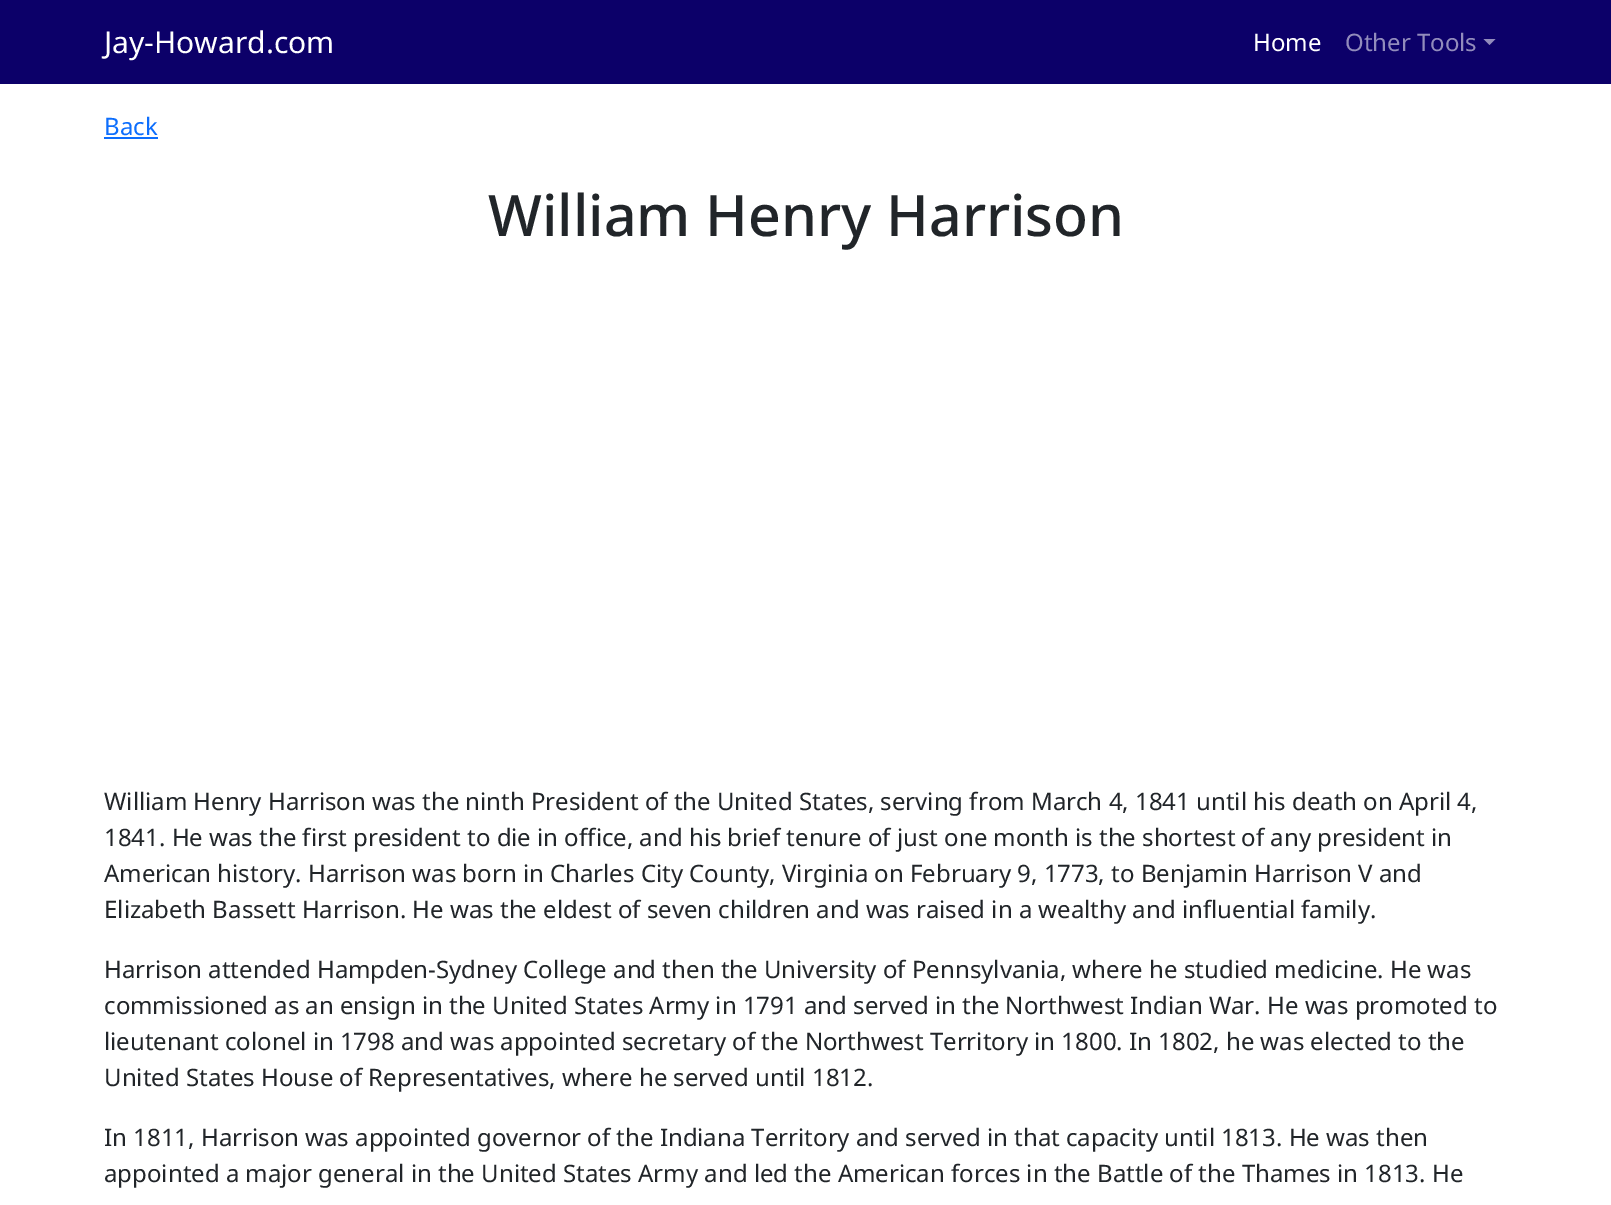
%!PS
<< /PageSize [1611 1205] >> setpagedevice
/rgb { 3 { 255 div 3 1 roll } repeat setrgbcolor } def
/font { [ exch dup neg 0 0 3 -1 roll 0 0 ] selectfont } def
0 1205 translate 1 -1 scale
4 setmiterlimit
255 255 255 rgb
0 0 1611 1205 rectfill
12 0 105 rgb
0 0 1611 84 rectfill
146 140 188 rgb
1483.5 39 moveto 1495.5 39 lineto 1489.5 45 lineto closepath fill
13 110 253 rgb
104 137 54 2 rectfill
/NotoSans-Regular 30 font
255 255 255 rgb
104 53 moveto (Jay-Howard.com) show
/NotoSans-Regular 24 font
1253 51 moveto (Home) show
146 140 188 rgb
1345 51 moveto (Other Tools) show
13 110 253 rgb
104 135 moveto (Back) show
/NotoSans-Medium 57.2 font
33 37 41 rgb
488 236 moveto (William Henry Harrison) show
/NotoSans-Regular 24 font
[
  [(William Henry Harrison was the ninth President of the United States, serving from March 4, 1841 until his death on April 4,) 104 810]
  [(1841. He was the first president to die in office, and his brief tenure of just one month is the shortest of any president in) 104 846]
  [(American history. Harrison was born in Charles City County, Virginia on February 9, 1773, to Benjamin Harrison V and) 104 882]
  [(Elizabeth Bassett Harrison. He was the eldest of seven children and was raised in a wealthy and influential family.) 104 918]
  [(Harrison attended Hampden-Sydney College and then the University of Pennsylvania, where he studied medicine. He was) 104 978]
  [(commissioned as an ensign in the United States Army in 1791 and served in the Northwest Indian War. He was promoted to) 104 1014]
  [(lieutenant colonel in 1798 and was appointed secretary of the Northwest Territory in 1800. In 1802, he was elected to the) 104 1050]
  [(United States House of Representatives, where he served until 1812.) 104 1086]
  [(In 1811, Harrison was appointed governor of the Indiana Territory and served in that capacity until 1813. He was then) 104 1146]
  [(appointed a major general in the United States Army and led the American forces in the Battle of the Thames in 1813. He) 104 1182]
] { aload pop moveto show } forall
showpage
